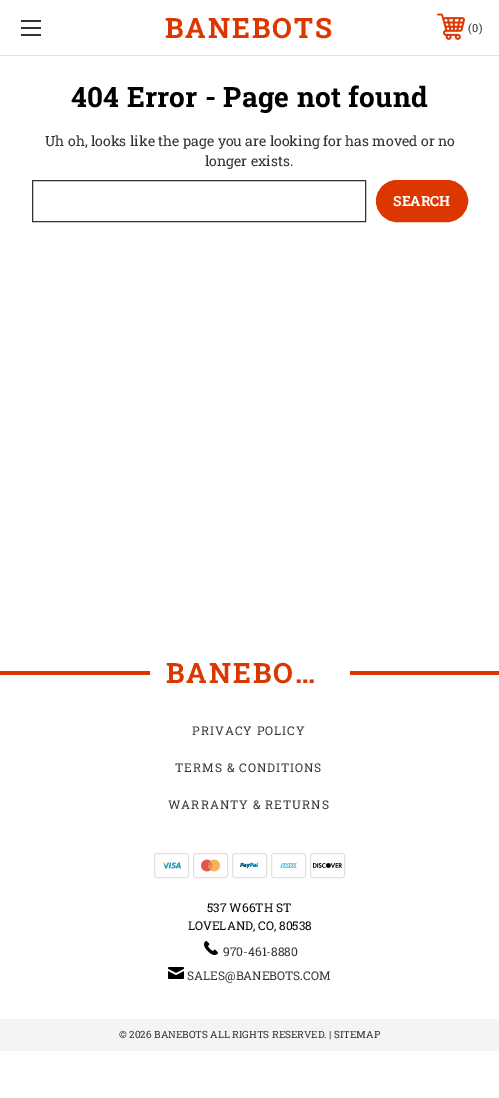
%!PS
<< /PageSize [499 1098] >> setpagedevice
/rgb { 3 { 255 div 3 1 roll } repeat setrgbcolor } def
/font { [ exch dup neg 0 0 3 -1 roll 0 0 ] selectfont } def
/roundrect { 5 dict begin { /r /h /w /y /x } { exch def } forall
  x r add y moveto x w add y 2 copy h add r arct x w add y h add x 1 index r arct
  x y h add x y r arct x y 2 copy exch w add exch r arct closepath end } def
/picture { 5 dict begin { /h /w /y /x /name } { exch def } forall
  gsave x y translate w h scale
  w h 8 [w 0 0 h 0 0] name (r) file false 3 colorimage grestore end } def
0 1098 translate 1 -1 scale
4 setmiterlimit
255 255 255 rgb
0 0 499 1098 rectfill
[
  [0 55 499 1 225 225 225]
  [21 27 20 2 51 51 51]
  [21 20 20 2 51 51 51]
  [21 34 20 2 51 51 51]
] { aload pop rgb rectfill } forall
(img/1.rgb) 437 13 28 27 picture
32.5 180.5 333 41 rectstroke
220 55 0 rgb
376.5 180.5 91 41 20.5 roundrect gsave fill grestore
stroke
0 671 499 4 rectfill
255 255 255 rgb
150 671 200 4 rectfill
225 225 225 rgb
154.5 853.5 34 24 2.5 roundrect stroke
(img/2.rgb) 162 862 19 7 picture
193.5 853.5 34 24 2.5 roundrect stroke
(img/3.rgb) 201 859 19 13 picture
232.5 853.5 34 24 2.5 roundrect stroke
(img/4.rgb) 240 862 18 7 picture
271.5 853.5 34 24 2.5 roundrect stroke
(img/5.rgb) 280 863 17 5 picture
310.5 853.5 34 24 2.5 roundrect stroke
(img/6.rgb) 313 863 29 5 picture
(img/7.rgb) 204 941 14 14 picture
(img/8.rgb) 168 967 16 12 picture
244 244 247 rgb
0 1019 499 32 rectfill
/RobotoSlab-Bold 28 font
220 55 0 rgb
165 38 moveto 2 0 (BANEBOTS) ashow
/RobotoSlab-Regular 11 font
51 51 51 rgb
[
  [(\() 468 32]
  [(0) 472 32]
  [(\)) 479 32]
] { aload pop moveto show } forall
/RobotoSlab-Bold 28 font
1 1 1 rgb
71 107 moveto 0.25 0 (404 Error - Page not found) ashow
/RobotoSlab-Regular 14 font
51 51 51 rgb
45 146 moveto (Uh oh, looks like the page you are looking for has moved or no) show
205 166 moveto (longer exists.) show
/RobotoSlab-Bold 14 font
255 255 255 rgb
393 206 moveto (SEARCH) show
/RobotoSlab-Bold 28 font
220 55 0 rgb
166 683 moveto 2 0 (BANEBO…) ashow
/RobotoSlab-Regular 12 font
51 51 51 rgb
192 735 moveto 1 0 (PRIVACY POLICY) ashow
175 772 moveto 1 0 (TERMS & CONDITIONS) ashow
168 809 moveto 1 0 (WARRANTY & RETURNS) ashow
1 1 1 rgb
207 912 moveto (537 W66TH ST) show
188 930 moveto (LOVELAND, CO, 80538) show
51 51 51 rgb
223 956 moveto (970-461-8880) show
187 980 moveto (SALES@BANEBOTS.COM) show
/RobotoSlab-Regular 10 font
119 1038 moveto (© 2026 BANEBOTS ALL RIGHTS RESERVED. | SITEMAP) show
showpage
